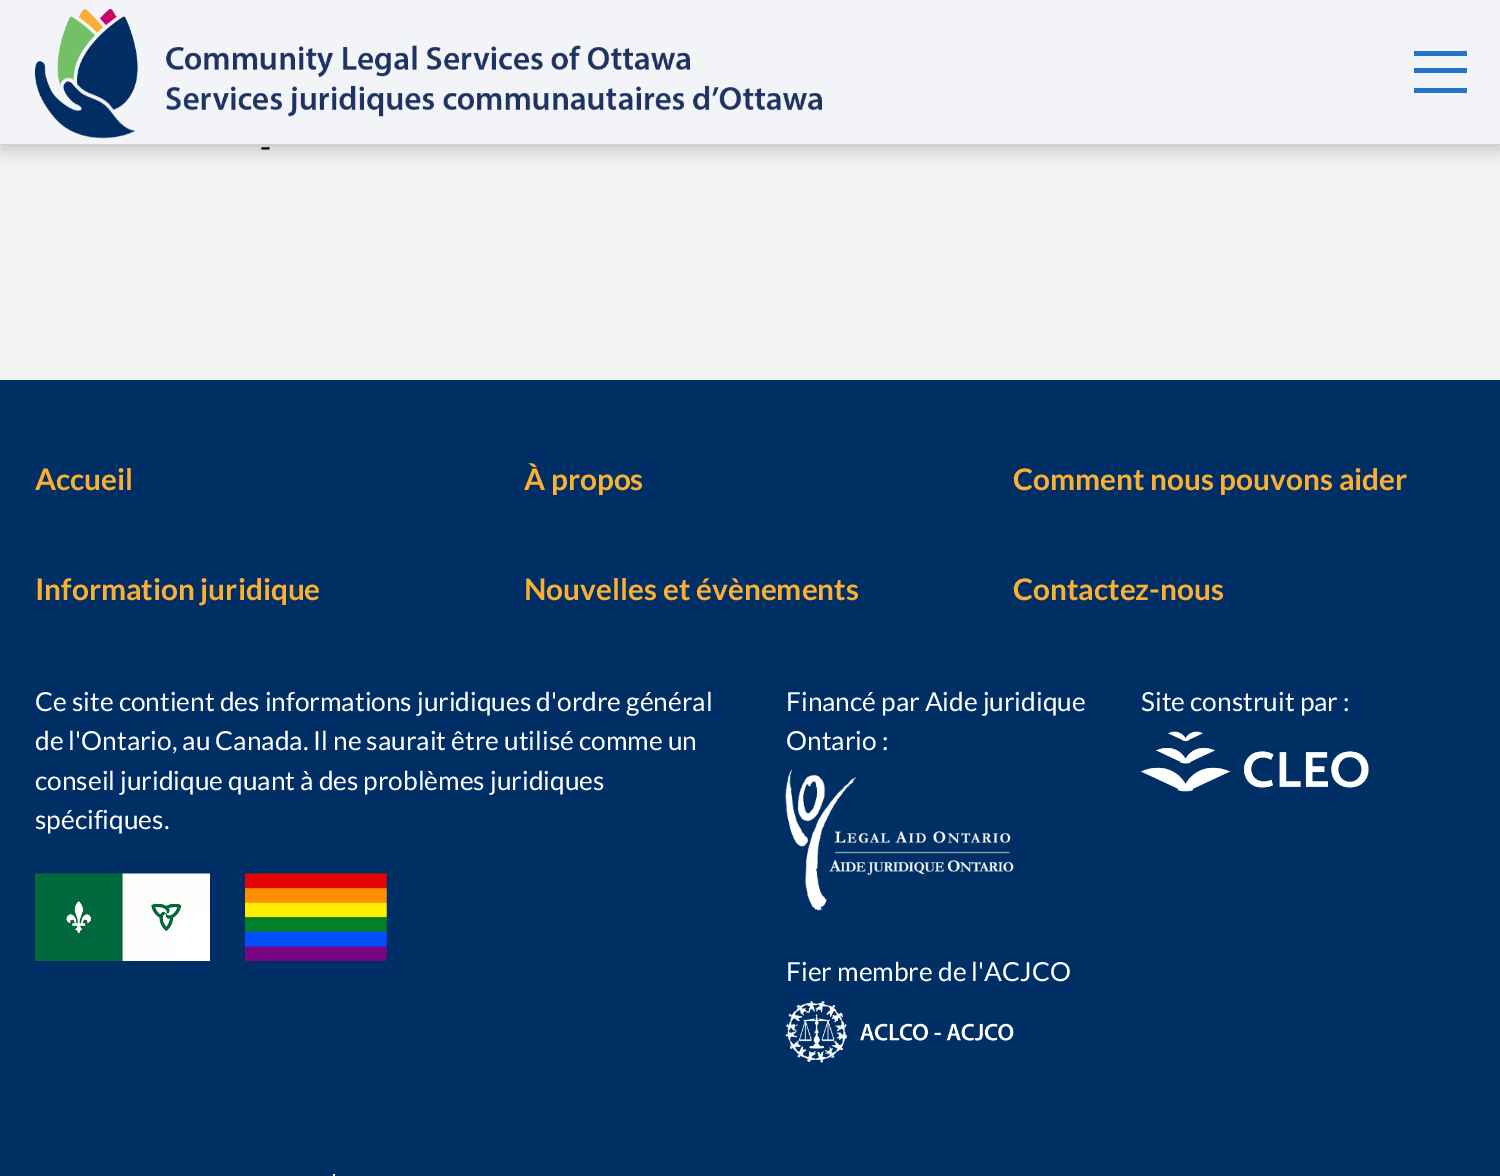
%!PS
<< /PageSize [1500 1176] /PageUsesTransparency true >> setpagedevice
/rgb { 3 { 255 div 3 1 roll } repeat setrgbcolor } def
/font { [ exch dup neg 0 0 3 -1 roll 0 0 ] selectfont } def
/alpha { dup .setfillconstantalpha .setstrokeconstantalpha } def
/roundrect { 5 dict begin { /r /h /w /y /x } { exch def } forall
  x r add y moveto x w add y 2 copy h add r arct x w add y h add x 1 index r arct
  x y h add x y r arct x y 2 copy exch w add exch r arct closepath end } def
/shadow { 12 dict begin { /a /b /q /h /w /y /x } { exch def } forall gsave /was 0 def
  9 -2 -9 { dup b mul 4 div /e exch def 1 sub .425 mul 2.718 exch exp 1 add a .99 .min exch div /now exch def
    1 1 now sub 1 was sub div sub alpha /was now def
    w h .min e 2 mul add 0 gt { x e sub y e sub w e 2 mul add h e 2 mul add
      q e add b .6 mul add w h .min 2 div e add .min 0 .max roundrect fill } if } for grestore end } def
/picture { 5 dict begin { /h /w /y /x /name } { exch def } forall
  gsave x y translate w h scale
  w h 8 [w 0 0 h 0 0] name (r) file false 3 colorimage grestore end } def
0 .pushpdf14devicefilter
0 1176 translate 1 -1 scale
4 setmiterlimit
243 243 243 rgb
0 0 1500 1176 rectfill
0 0 0 rgb
0 5 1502 144 0 9 0.2 shadow
242 244 247 rgb
0 0 1500 144 rectfill
(img/1.rgb) 35 9 787 130 picture
[
  [1414 51 53 5 35 114 204]
  [1414 68 53 5 35 114 204]
  [1414 88 53 5 35 114 204]
  [0 380 1500 796 0 47 101]
] { aload pop rgb rectfill } forall
(img/2.rgb) 35 873 175 88 picture
(img/3.rgb) 245 873 142 88 picture
(img/4.rgb) 785 770 229 141 picture
(img/5.rgb) 1141 731 228 61 picture
(img/6.rgb) 785 1001 229 62 picture
255 255 255 rgb
333 1174 2 2 rectfill
/Lato-Regular 32 font
0 0 0 rgb
260 158 moveto (-) show
/Lato-Bold 29.75 font
252 176 51 rgb
[
  [(Accueil) 35 490]
  [(À propos) 524 490]
  [(Comment nous pouvons aider) 1013 490]
  [(Information juridique) 35 600]
  [(Nouvelles et évènements) 524 600]
  [(Contactez-nous) 1013 600]
] { aload pop moveto show } forall
/Lato-Regular 26.25 font
255 255 255 rgb
[
  [(Ce site contient des informations juridiques d'ordre général) 35 711]
  [(de l'Ontario, au Canada. Il ne saurait être utilisé comme un) 35 750]
  [(conseil juridique quant à des problèmes juridiques) 35 790]
  [(spécifiques.) 35 829]
  [(Financé par Aide juridique) 786 711]
  [(Ontario :) 786 750]
  [(Site construit par :) 1141 711]
  [(Fier membre de l'ACJCO) 786 981]
] { aload pop moveto show } forall
.poppdf14devicefilter showpage
